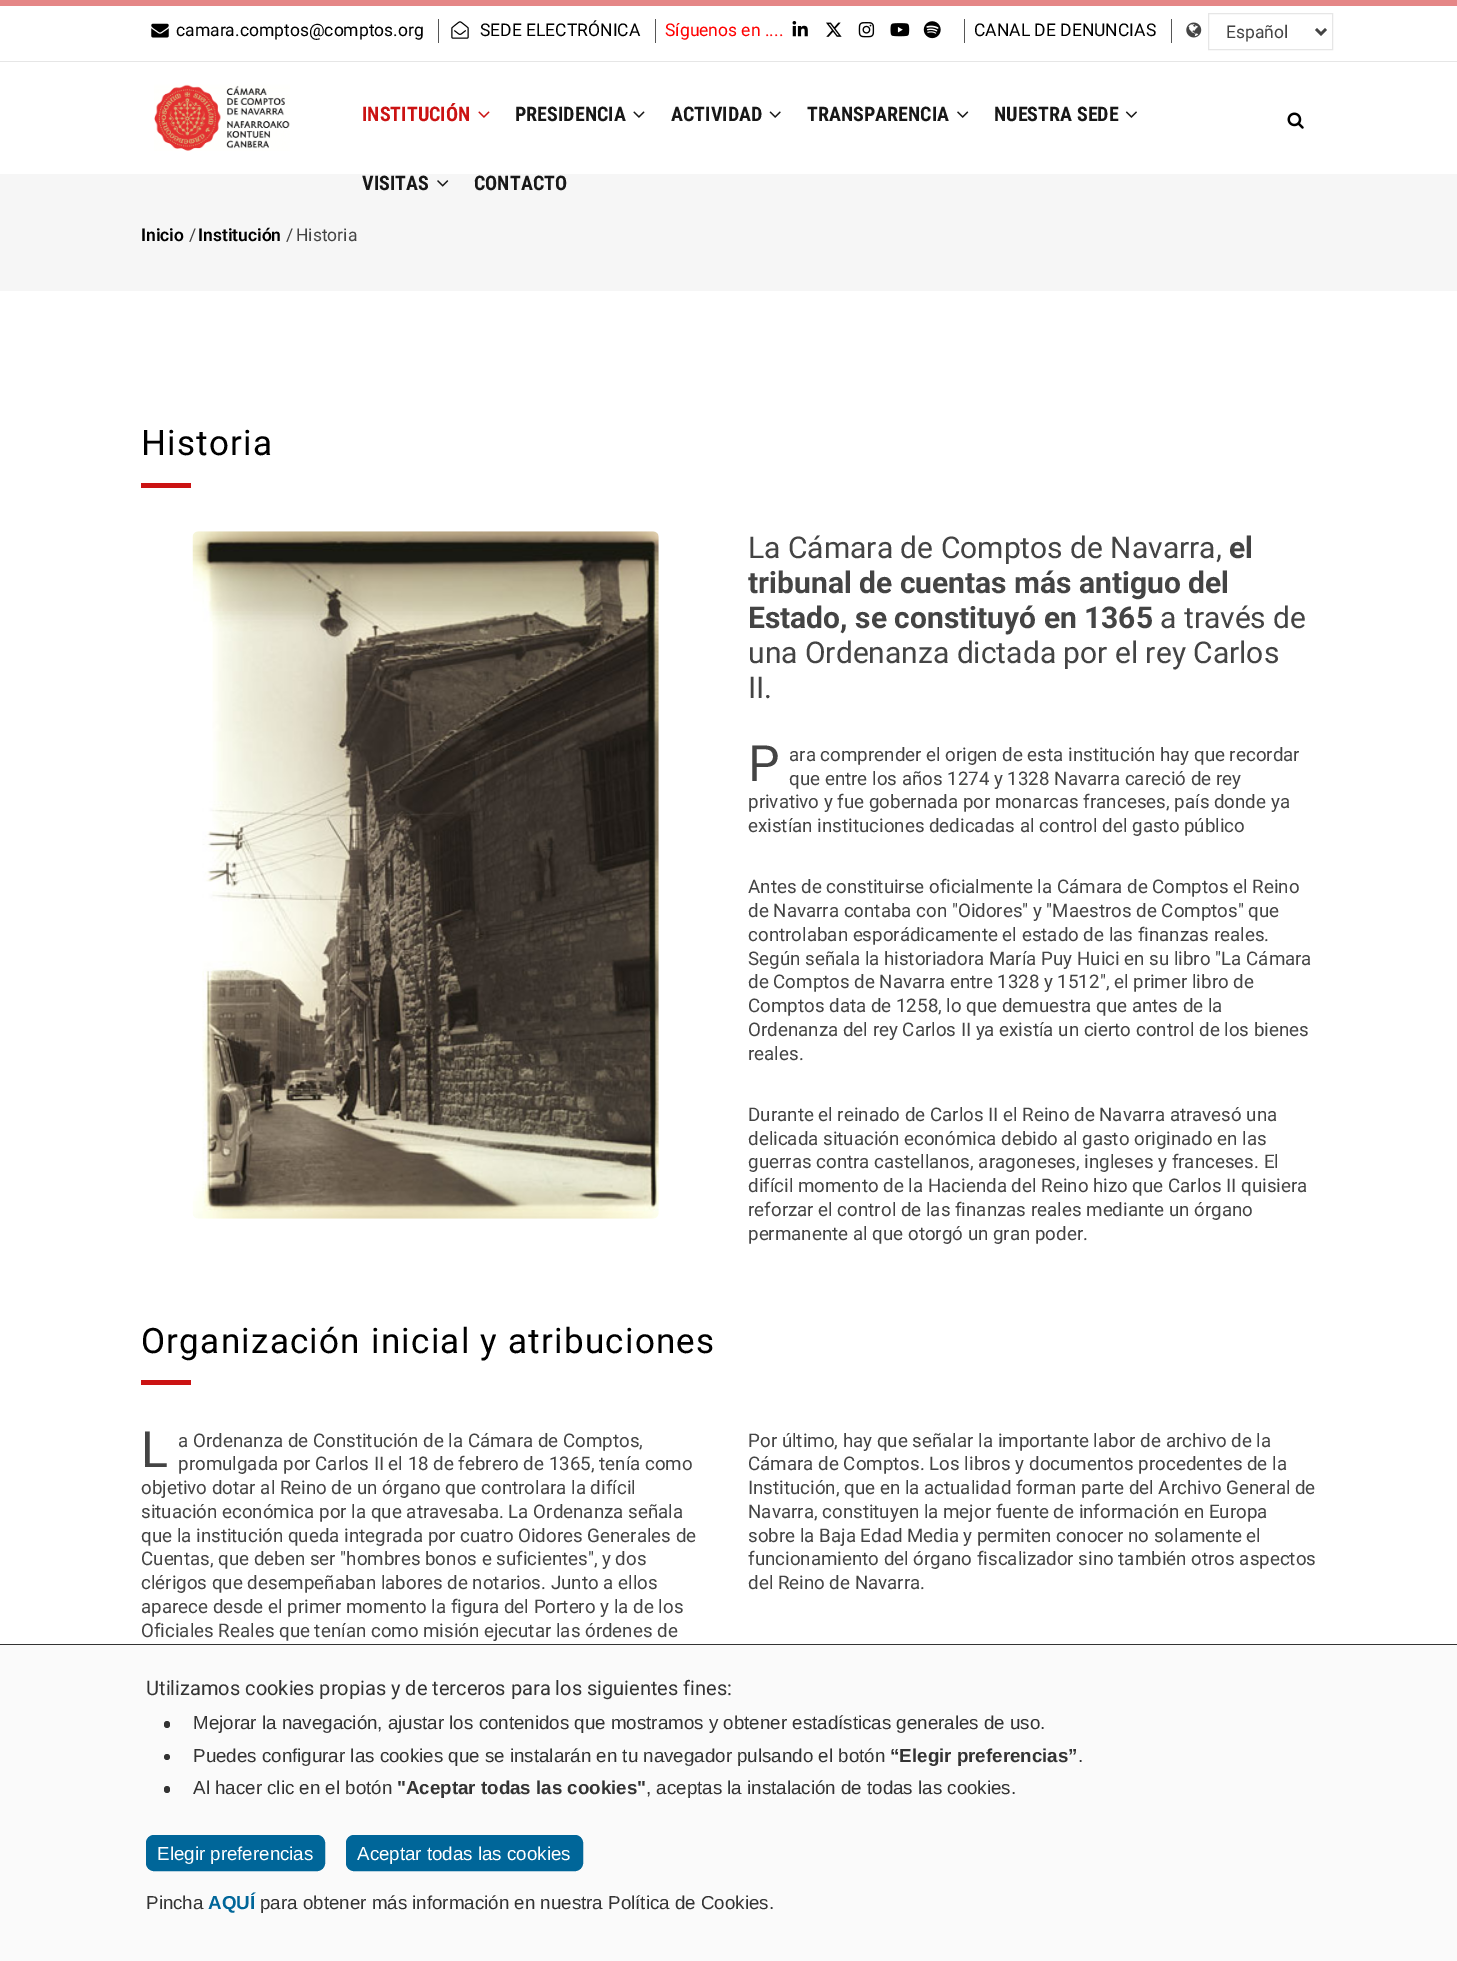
%!PS
<< /PageSize [1457 1961] >> setpagedevice
/rgb { 3 { 255 div 3 1 roll } repeat setrgbcolor } def
/font { [ exch dup neg 0 0 3 -1 roll 0 0 ] selectfont } def
/circle { newpath 0 360 arc closepath } def
/roundrect { 5 dict begin { /r /h /w /y /x } { exch def } forall
  x r add y moveto x w add y 2 copy h add r arct x w add y h add x 1 index r arct
  x y h add x y r arct x y 2 copy exch w add exch r arct closepath end } def
/picture { 5 dict begin { /h /w /y /x /name } { exch def } forall
  gsave x y translate w h scale
  w h 8 [w 0 0 h 0 0] name (r) file false 3 colorimage grestore end } def
0 1961 translate 1 -1 scale
4 setmiterlimit
255 255 255 rgb
0 0 1457 1961 rectfill
229 135 135 rgb
0 0 1457 6 rectfill
230 230 230 rgb
0 61 1457 1 rectfill
(img/1.rgb) 151 23 18 15 picture
86 86 86 rgb
438 19 1 24 rectfill
(img/2.rgb) 451 21 18 18 picture
655 19 1 24 rectfill
(img/3.rgb) 792 21 16 16 picture
(img/4.rgb) 826 22 16 15 picture
(img/5.rgb) 858 22 17 16 picture
(img/6.rgb) 890 23 20 14 picture
(img/7.rgb) 923 21 18 18 picture
964 19 1 24 rectfill
1171 19 1 24 rectfill
(img/8.rgb) 1186 22 16 16 picture
230 230 230 rgb
1208.5 13.5 124 36 rectstroke
68 68 68 rgb
2.5 setlinewidth
1316 29 moveto 1321 34 lineto 1326 29 lineto stroke
(img/9.rgb) 154 84 136 67 picture
(img/10.rgb) 478 111 12 7 picture
(img/11.rgb) 633 111 12 7 picture
(img/12.rgb) 769 111 12 7 picture
(img/13.rgb) 957 111 12 7 picture
(img/14.rgb) 1125 111 12 7 picture
246 246 246 rgb
0 174 1457 117 rectfill
(img/15.rgb) 437 180 12 7 picture
(img/16.rgb) 1287 112 17 17 picture
203 19 19 rgb
141 483 50 5 rectfill
(img/17.rgb) 192 531 467 688 picture
[
  [141 1380 50 5 203 19 19]
  [0 1645 1457 316 250 250 250]
  [0 1644 1457 1 51 51 51]
] { aload pop rgb rectfill } forall
164 1721 6 7 3 roundrect fill
167 1757 3 circle fill
164 1786 6 7 3 roundrect fill
0 102 153 rgb
146.5 1835.5 178 35 7.5 roundrect gsave fill grestore
1 setlinewidth
stroke
346.5 1835.5 236 35 7.5 roundrect gsave fill grestore
stroke
/Roboto-Regular 17.5 font
0 0 0 rgb
176 36 moveto (camara.comptos@comptos.org) show
480 36 moveto (SEDE ELECTRÓNICA) show
255 0 0 rgb
665 36 moveto (Síguenos en ....) show
0 0 0 rgb
974 36 moveto (CANAL DE DENUNCIAS) show
68 68 68 rgb
1226 38 moveto (Español) show
/RobotoCondensed-Bold 20 font
203 19 19 rgb
362 121 moveto (INSTITUCIÓN) show
24 24 24 rgb
[
  [(PRESIDENCIA) 515 121]
  [(ACTIVIDAD) 671 121]
  [(TRANSPARENCIA) 807 121]
  [(NUESTRA SEDE) 994 121]
  [(VISITAS) 362 190]
  [(CONTACTO) 474 190]
] { aload pop moveto show } forall
/Roboto-SemiBold 17.5 font
0 0 0 rgb
141 241 moveto (Inicio) show
/Roboto-Regular 17.5 font
68 68 68 rgb
189 241 moveto (/) show
/Roboto-SemiBold 17.5 font
0 0 0 rgb
198 241 moveto (Institución) show
/Roboto-Regular 17.5 font
68 68 68 rgb
286 241 moveto (/) show
296 241 moveto (Historia) show
/Roboto-Regular 35 font
0 0 0 rgb
141 455 moveto 1.25 0 (Historia) ashow
/Roboto-Regular 30 font
68 68 68 rgb
748 558 moveto (La Cámara de Comptos de Navarra,) show
/Roboto-Bold 30 font
[
  [(el) 1229 558]
  [(tribunal de cuentas más antiguo del) 748 593]
  [(Estado, se constituyó en 1365) 748 628]
] { aload pop moveto show } forall
/Roboto-Regular 30 font
[
  [(a través de) 1160 628]
  [(una Ordenanza dictada por el rey Carlos) 748 663]
  [(II.) 748 698]
] { aload pop moveto show } forall
/Roboto-Regular 50 font
748 781 moveto (P) show
/Roboto-Regular 18.75 font
[
  [(ara comprender el origen de esta institución hay que recordar) 789 761]
  [(que entre los años 1274 y 1328 Navarra careció de rey) 789 785]
  [(privativo y fue gobernada por monarcas franceses, país donde ya) 748 808]
  [(existían instituciones dedicadas al control del gasto público) 748 832]
  [(Antes de constituirse oficialmente la Cámara de Comptos el Reino) 748 893]
  [(de Navarra contaba con "Oidores" y "Maestros de Comptos" que) 748 917]
  [(controlaban esporádicamente el estado de las finanzas reales.) 748 941]
  [(Según señala la historiadora María Puy Huici en su libro "La Cámara) 748 965]
  [(de Comptos de Navarra entre 1328 y 1512", el primer libro de) 748 988]
  [(Comptos data de 1258, lo que demuestra que antes de la) 748 1012]
  [(Ordenanza del rey Carlos II ya existía un cierto control de los bienes) 748 1036]
  [(reales.) 748 1060]
  [(Durante el reinado de Carlos II el Reino de Navarra atravesó una) 748 1121]
  [(delicada situación económica debido al gasto originado en las) 748 1145]
  [(guerras contra castellanos, aragoneses, ingleses y franceses. El) 748 1168]
  [(difícil momento de la Hacienda del Reino hizo que Carlos II quisiera) 748 1192]
  [(reforzar el control de las finanzas reales mediante un órgano) 748 1216]
  [(permanente al que otorgó un gran poder.) 748 1240]
] { aload pop moveto show } forall
/Roboto-Regular 35 font
0 0 0 rgb
141 1353 moveto 1.25 0 (Organización inicial y atribuciones) ashow
/Roboto-Regular 50 font
68 68 68 rgb
141 1467 moveto (L) show
/Roboto-Regular 18.75 font
[
  [(a Ordenanza de Constitución de la Cámara de Comptos,) 178 1447]
  [(promulgada por Carlos II el 18 de febrero de 1365, tenía como) 178 1470]
  [(objetivo dotar al Reino de un órgano que controlara la difícil) 141 1494]
  [(situación económica por la que atravesaba. La Ordenanza señala) 141 1518]
  [(que la institución queda integrada por cuatro Oidores Generales de) 141 1542]
  [(Cuentas, que deben ser "hombres bonos e suficientes", y dos) 141 1565]
  [(clérigos que desempeñaban labores de notarios. Junto a ellos) 141 1589]
  [(aparece desde el primer momento la figura del Portero y la de los) 141 1613]
  [(Oficiales Reales que tenían como misión ejecutar las órdenes de) 141 1637]
  [(Por último, hay que señalar la importante labor de archivo de la) 748 1447]
  [(Cámara de Comptos. Los libros y documentos procedentes de la) 748 1470]
  [(Institución, que en la actualidad forman parte del Archivo General de) 748 1494]
  [(Navarra, constituyen la mejor fuente de información en Europa) 748 1518]
  [(sobre la Baja Edad Media y permiten conocer no solamente el) 748 1542]
  [(funcionamiento del órgano fiscalizador sino también otros aspectos) 748 1565]
  [(del Reino de Navarra.) 748 1589]
] { aload pop moveto show } forall
/Roboto-Regular 20 font
51 51 51 rgb
146 1695 moveto (Utilizamos cookies propias y de terceros para los siguientes fines:) show
/LiberationSans-Regular 18.75 font
193 1729 moveto (Mejorar la navegación, ajustar los contenidos que mostramos y obtener estadísticas generales de uso.) show
193 1762 moveto (Puedes configurar las cookies que se instalarán en tu navegador pulsando el botón) show
/LiberationSans-Bold 18.75 font
890 1762 moveto (“Elegir preferencias”) show
/LiberationSans-Regular 18.75 font
1078 1762 moveto (.) show
193 1794 moveto (Al hacer clic en el botón) show
/LiberationSans-Bold 18.75 font
397 1794 moveto ("Aceptar todas las cookies") show
/LiberationSans-Regular 18.75 font
646 1794 moveto (, aceptas la instalación de todas las cookies.) show
255 255 255 rgb
157 1860 moveto (Elegir preferencias) show
357 1860 moveto (Aceptar todas las cookies) show
51 51 51 rgb
146 1909 moveto (Pincha) show
/LiberationSans-Bold 18.75 font
0 102 153 rgb
208 1909 moveto (AQUÍ) show
/LiberationSans-Regular 18.75 font
51 51 51 rgb
260 1909 moveto (para obtener más información en nuestra Política de Cookies.) show
showpage
